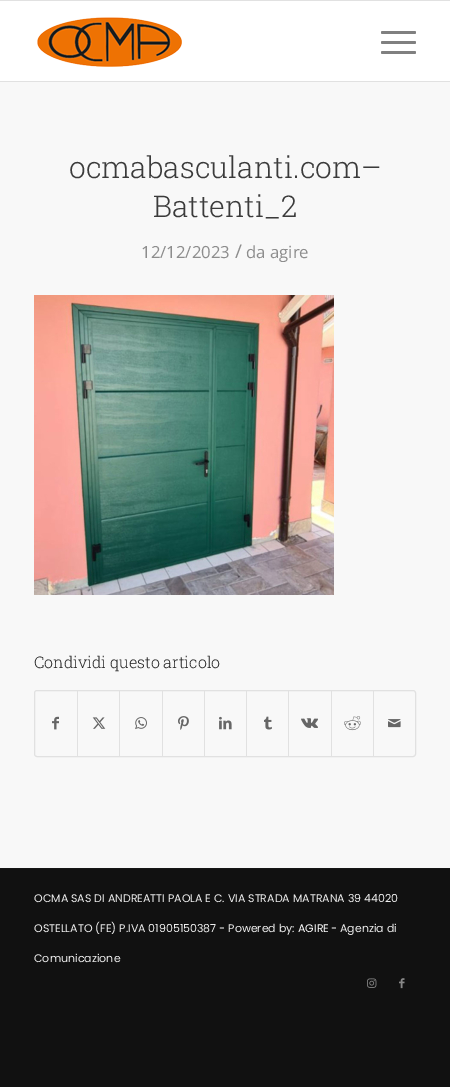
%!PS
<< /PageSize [450 1087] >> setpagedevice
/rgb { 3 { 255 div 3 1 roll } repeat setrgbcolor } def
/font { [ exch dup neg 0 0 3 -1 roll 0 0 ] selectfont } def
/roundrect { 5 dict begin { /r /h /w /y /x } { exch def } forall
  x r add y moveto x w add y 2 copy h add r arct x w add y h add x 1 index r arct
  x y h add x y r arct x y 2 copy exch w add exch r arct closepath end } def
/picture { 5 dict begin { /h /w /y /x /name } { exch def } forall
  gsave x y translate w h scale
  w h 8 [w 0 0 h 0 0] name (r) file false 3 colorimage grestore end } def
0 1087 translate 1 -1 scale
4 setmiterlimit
17 17 17 rgb
0 0 450 1087 rectfill
[
  [0 0 450 1 225 225 225]
  [0 81 450 1 225 225 225]
  [0 1 450 80 255 255 255]
] { aload pop rgb rectfill } forall
(img/1.rgb) 37 17 145 50 picture
128 128 128 rgb
381 41 35 3 1.5 roundrect fill
381 31 35 3 1.5 roundrect fill
381 51 35 3 1.5 roundrect fill
248 248 248 rgb
0 82 450 786 rectfill
(img/2.rgb) 34 295 300 300 picture
225 225 225 rgb
34.5 690.5 381 66 2.5 roundrect stroke
(img/3.rgb) 52 716 7 14 picture
77 691 1 65 rectfill
(img/4.rgb) 92 717 14 12 picture
119 691 1 65 rectfill
(img/5.rgb) 135 717 12 13 picture
162 691 1 65 rectfill
(img/6.rgb) 178 716 11 14 picture
204 691 1 65 rectfill
(img/7.rgb) 219 716 13 14 picture
246 691 1 65 rectfill
(img/8.rgb) 264 716 8 14 picture
288 691 1 65 rectfill
(img/9.rgb) 301 718 17 10 picture
331 691 1 65 rectfill
(img/10.rgb) 344 716 17 15 picture
373 691 1 65 rectfill
(img/11.rgb) 388 719 13 9 picture
22 22 22 rgb
0 868 450 1 rectfill
(img/12.rgb) 367 978 10 10 picture
(img/13.rgb) 399 978 6 11 picture
/RobotoSlab-Light 30 font
59 59 59 rgb
69 178 moveto (ocmabasculanti.com–) show
153 217 moveto (Battenti_2) show
/OpenSans-Regular 16.75 font
141 141 141 rgb
141 258 moveto (12/12/2023) show
/OpenSans-Regular 19 font
235 258 moveto (/) show
/OpenSans-Regular 16.75 font
246 258 moveto (da agire) show
/RobotoSlab-Light 16 font
34 34 34 rgb
34 668 moveto (Condividi questo articolo) show
/Poppins-Regular 11 font
238 238 238 rgb
34 902 moveto (OCMA SAS DI ANDREATTI PAOLA E C. VIA STRADA MATRANA 39 44020) show
34 932 moveto (OSTELLATO \(FE\) P.IVA 01905150387 - Powered by:) show
255 255 255 rgb
298 932 moveto (AGIRE) show
238 238 238 rgb
331 932 moveto (- Agenzia di) show
34 962 moveto (Comunicazione) show
showpage
